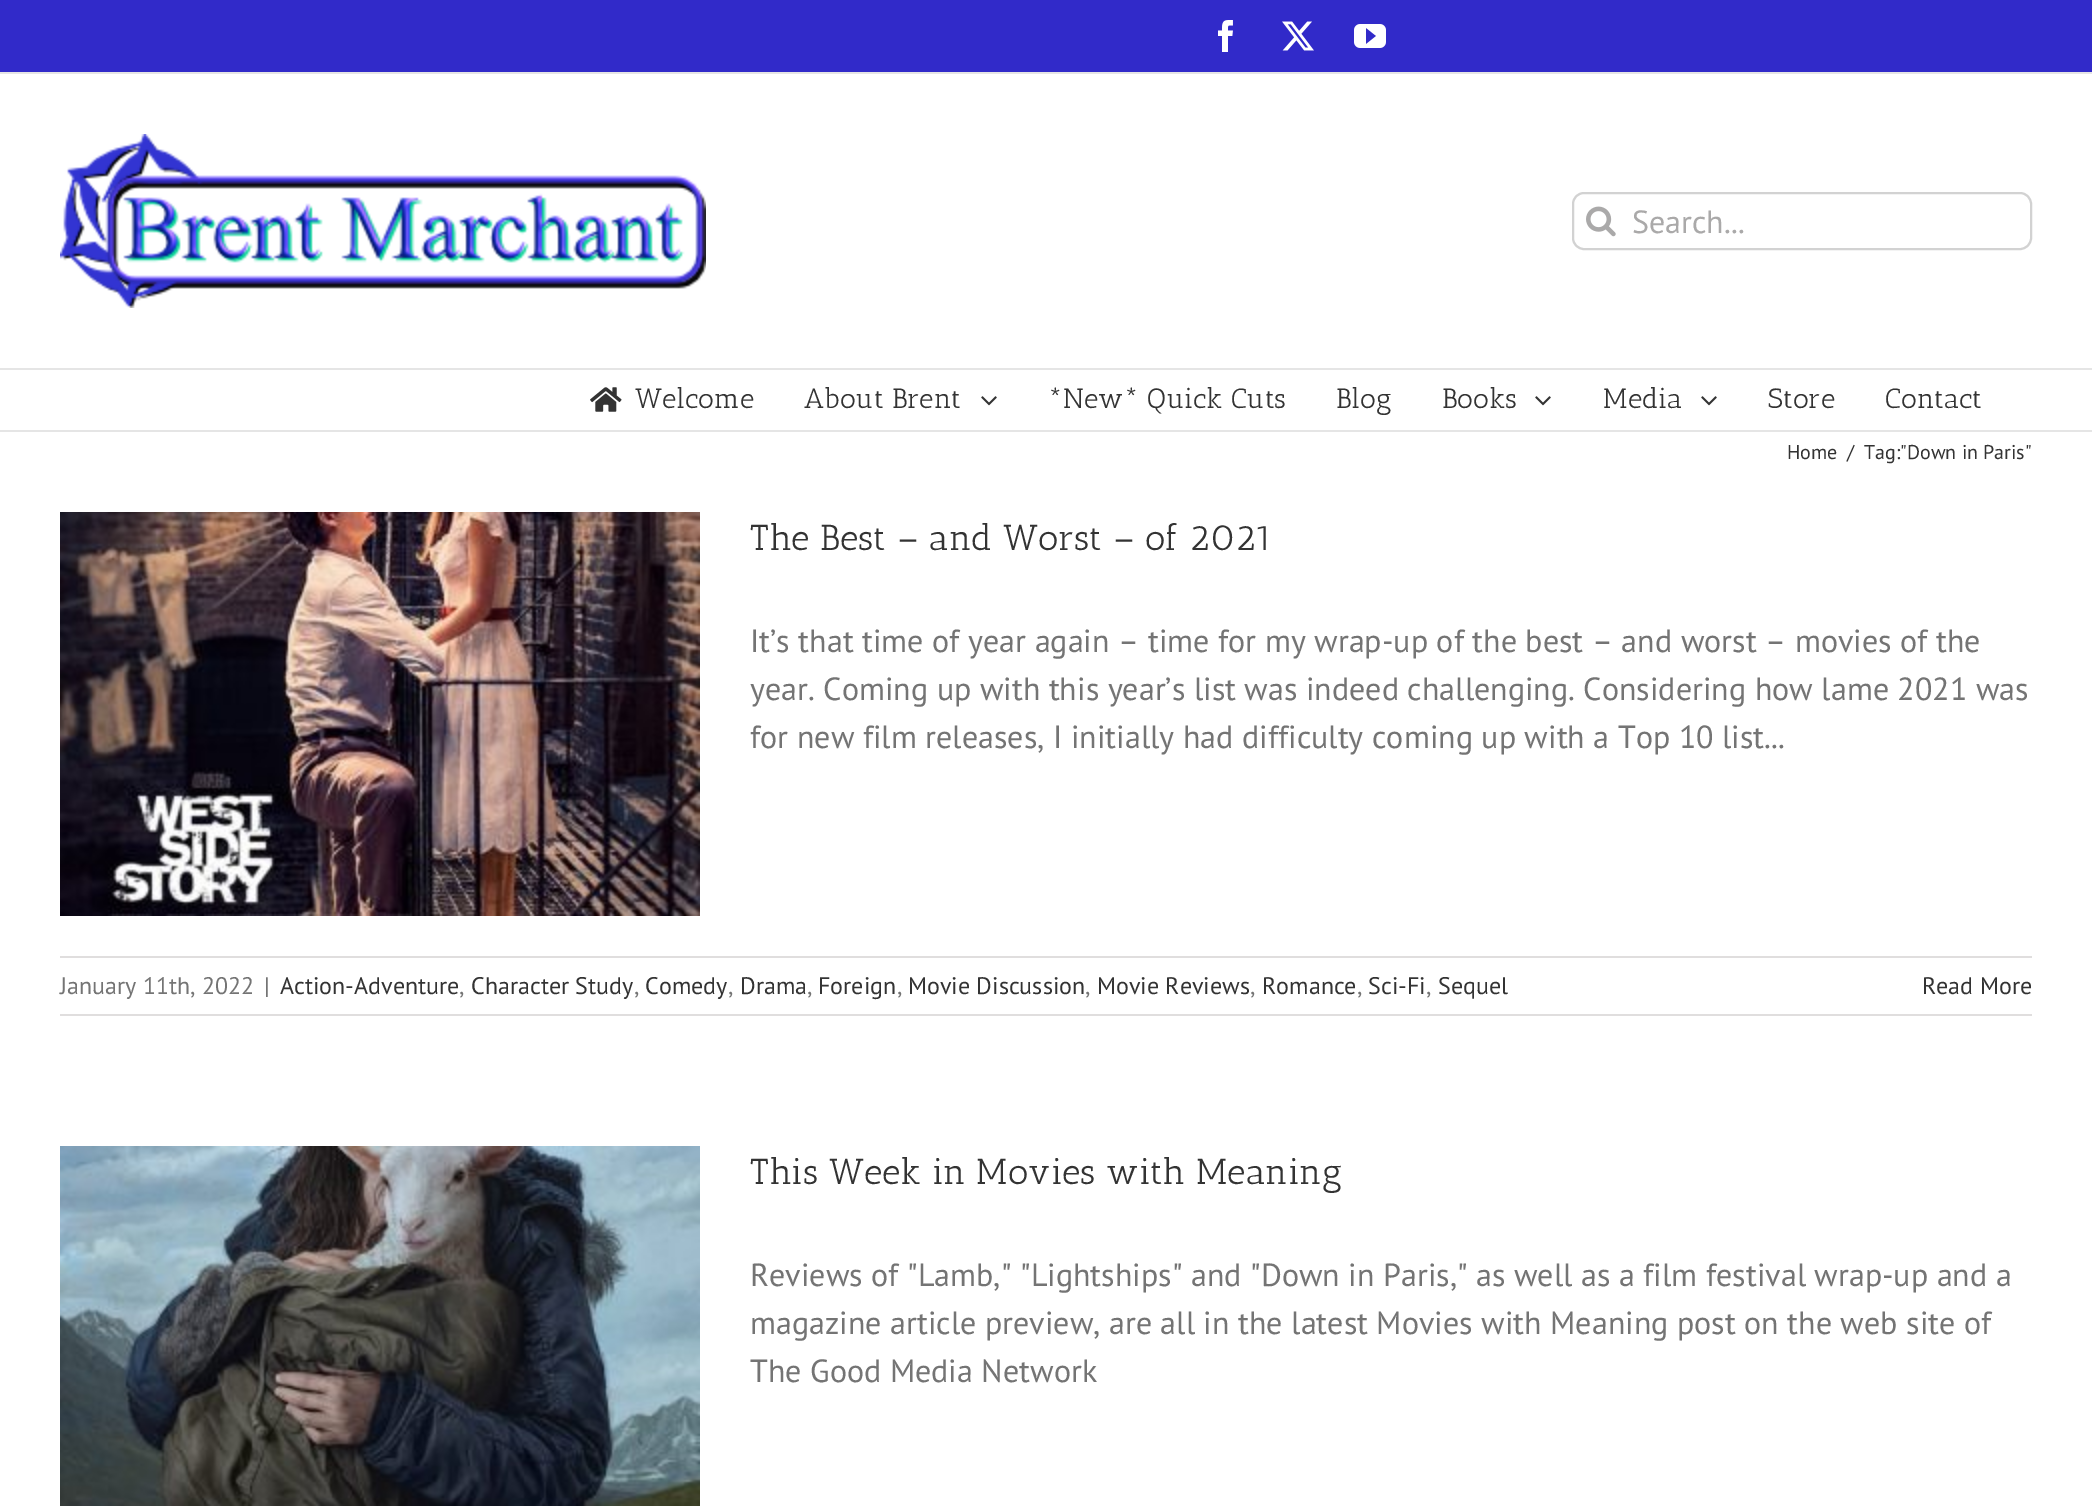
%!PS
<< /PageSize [2092 1506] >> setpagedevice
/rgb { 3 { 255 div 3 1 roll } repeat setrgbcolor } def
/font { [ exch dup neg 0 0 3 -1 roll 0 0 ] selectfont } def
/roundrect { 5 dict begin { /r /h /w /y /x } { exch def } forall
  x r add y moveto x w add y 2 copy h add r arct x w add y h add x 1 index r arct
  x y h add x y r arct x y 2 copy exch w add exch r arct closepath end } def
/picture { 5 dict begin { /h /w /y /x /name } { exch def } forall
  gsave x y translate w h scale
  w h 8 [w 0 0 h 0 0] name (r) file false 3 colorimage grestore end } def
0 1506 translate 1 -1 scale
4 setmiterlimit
255 255 255 rgb
0 0 2092 1506 rectfill
49 42 201 rgb
0 0 2092 72 rectfill
229 229 229 rgb
0 72 2092 2 rectfill
(img/1.rgb) 1218 20 15 32 picture
(img/2.rgb) 1282 21 32 30 picture
(img/3.rgb) 1354 24 32 24 picture
0 368 2092 2 rectfill
(img/4.rgb) 60 134 646 174 picture
210 210 210 rgb
2 setlinewidth
1573 193 458 56 11 roundrect stroke
(img/5.rgb) 1586 206 30 31 picture
229 229 229 rgb
0 430 2092 2 rectfill
(img/6.rgb) 590 387 32 25 picture
(img/7.rgb) 981 396 16 10 picture
(img/7.rgb) 1535 396 16 10 picture
(img/7.rgb) 1701 396 16 10 picture
(img/8.rgb) 60 512 640 404 picture
224 222 222 rgb
60 956 1972 2 rectfill
60 1014 1972 2 rectfill
(img/9.rgb) 60 1146 640 360 picture
/PTSans-Regular 32 font
170 169 169 rgb
1632 233 moveto (Search...) show
/AnticSlab-Regular 28 font
51 51 51 rgb
[
  [(Welcome) 635 408]
  [(About Brent) 804 408]
  [(*New* Quick Cuts) 1047 408]
  [(Blog) 1336 408]
  [(Books) 1442 408]
  [(Media) 1603 408]
  [(Store) 1768 408]
  [(Contact) 1885 408]
] { aload pop moveto show } forall
/PTSans-Regular 20 font
[
  [(Home) 1787 459]
  [(/) 1847 459]
  [(Tag:"Down in Paris") 1864 459]
] { aload pop moveto show } forall
/AnticSlab-Regular 36 font
750 550 moveto (The Best – and Worst – of 2021) show
/PTSans-Regular 32 font
116 116 116 rgb
[
  [(It’s that time of year again – time for my wrap-up of the best – and worst – movies of the) 750 652]
  [(year. Coming up with this year’s list was indeed challenging. Considering how lame 2021 was) 750 700]
  [(for new film releases, I initially had difficulty coming up with a Top 10 list...) 750 748]
] { aload pop moveto show } forall
/PTSans-Regular 24 font
60 994 moveto (January 11th, 2022) show
264 994 moveto (|) show
51 51 51 rgb
280 994 moveto (Action-Adventure) show
116 116 116 rgb
459 994 moveto (,) show
51 51 51 rgb
471 994 moveto (Character Study) show
116 116 116 rgb
634 994 moveto (,) show
51 51 51 rgb
645 994 moveto (Comedy) show
116 116 116 rgb
728 994 moveto (,) show
51 51 51 rgb
740 994 moveto (Drama) show
116 116 116 rgb
807 994 moveto (,) show
51 51 51 rgb
818 994 moveto (Foreign) show
116 116 116 rgb
897 994 moveto (,) show
51 51 51 rgb
908 994 moveto (Movie Discussion) show
116 116 116 rgb
1085 994 moveto (,) show
51 51 51 rgb
1097 994 moveto (Movie Reviews) show
116 116 116 rgb
1250 994 moveto (,) show
51 51 51 rgb
1262 994 moveto (Romance) show
116 116 116 rgb
1357 994 moveto (,) show
51 51 51 rgb
1368 994 moveto (Sci-Fi) show
116 116 116 rgb
1426 994 moveto (,) show
51 51 51 rgb
1438 994 moveto (Sequel) show
1922 994 moveto (Read More) show
/AnticSlab-Regular 36 font
750 1184 moveto (This Week in Movies with Meaning) show
/PTSans-Regular 32 font
116 116 116 rgb
[
  [(Reviews of "Lamb," "Lightships" and "Down in Paris," as well as a film festival wrap-up and a) 750 1286]
  [(magazine article preview, are all in the latest Movies with Meaning post on the web site of) 750 1334]
  [(The Good Media Network) 750 1382]
] { aload pop moveto show } forall
showpage
